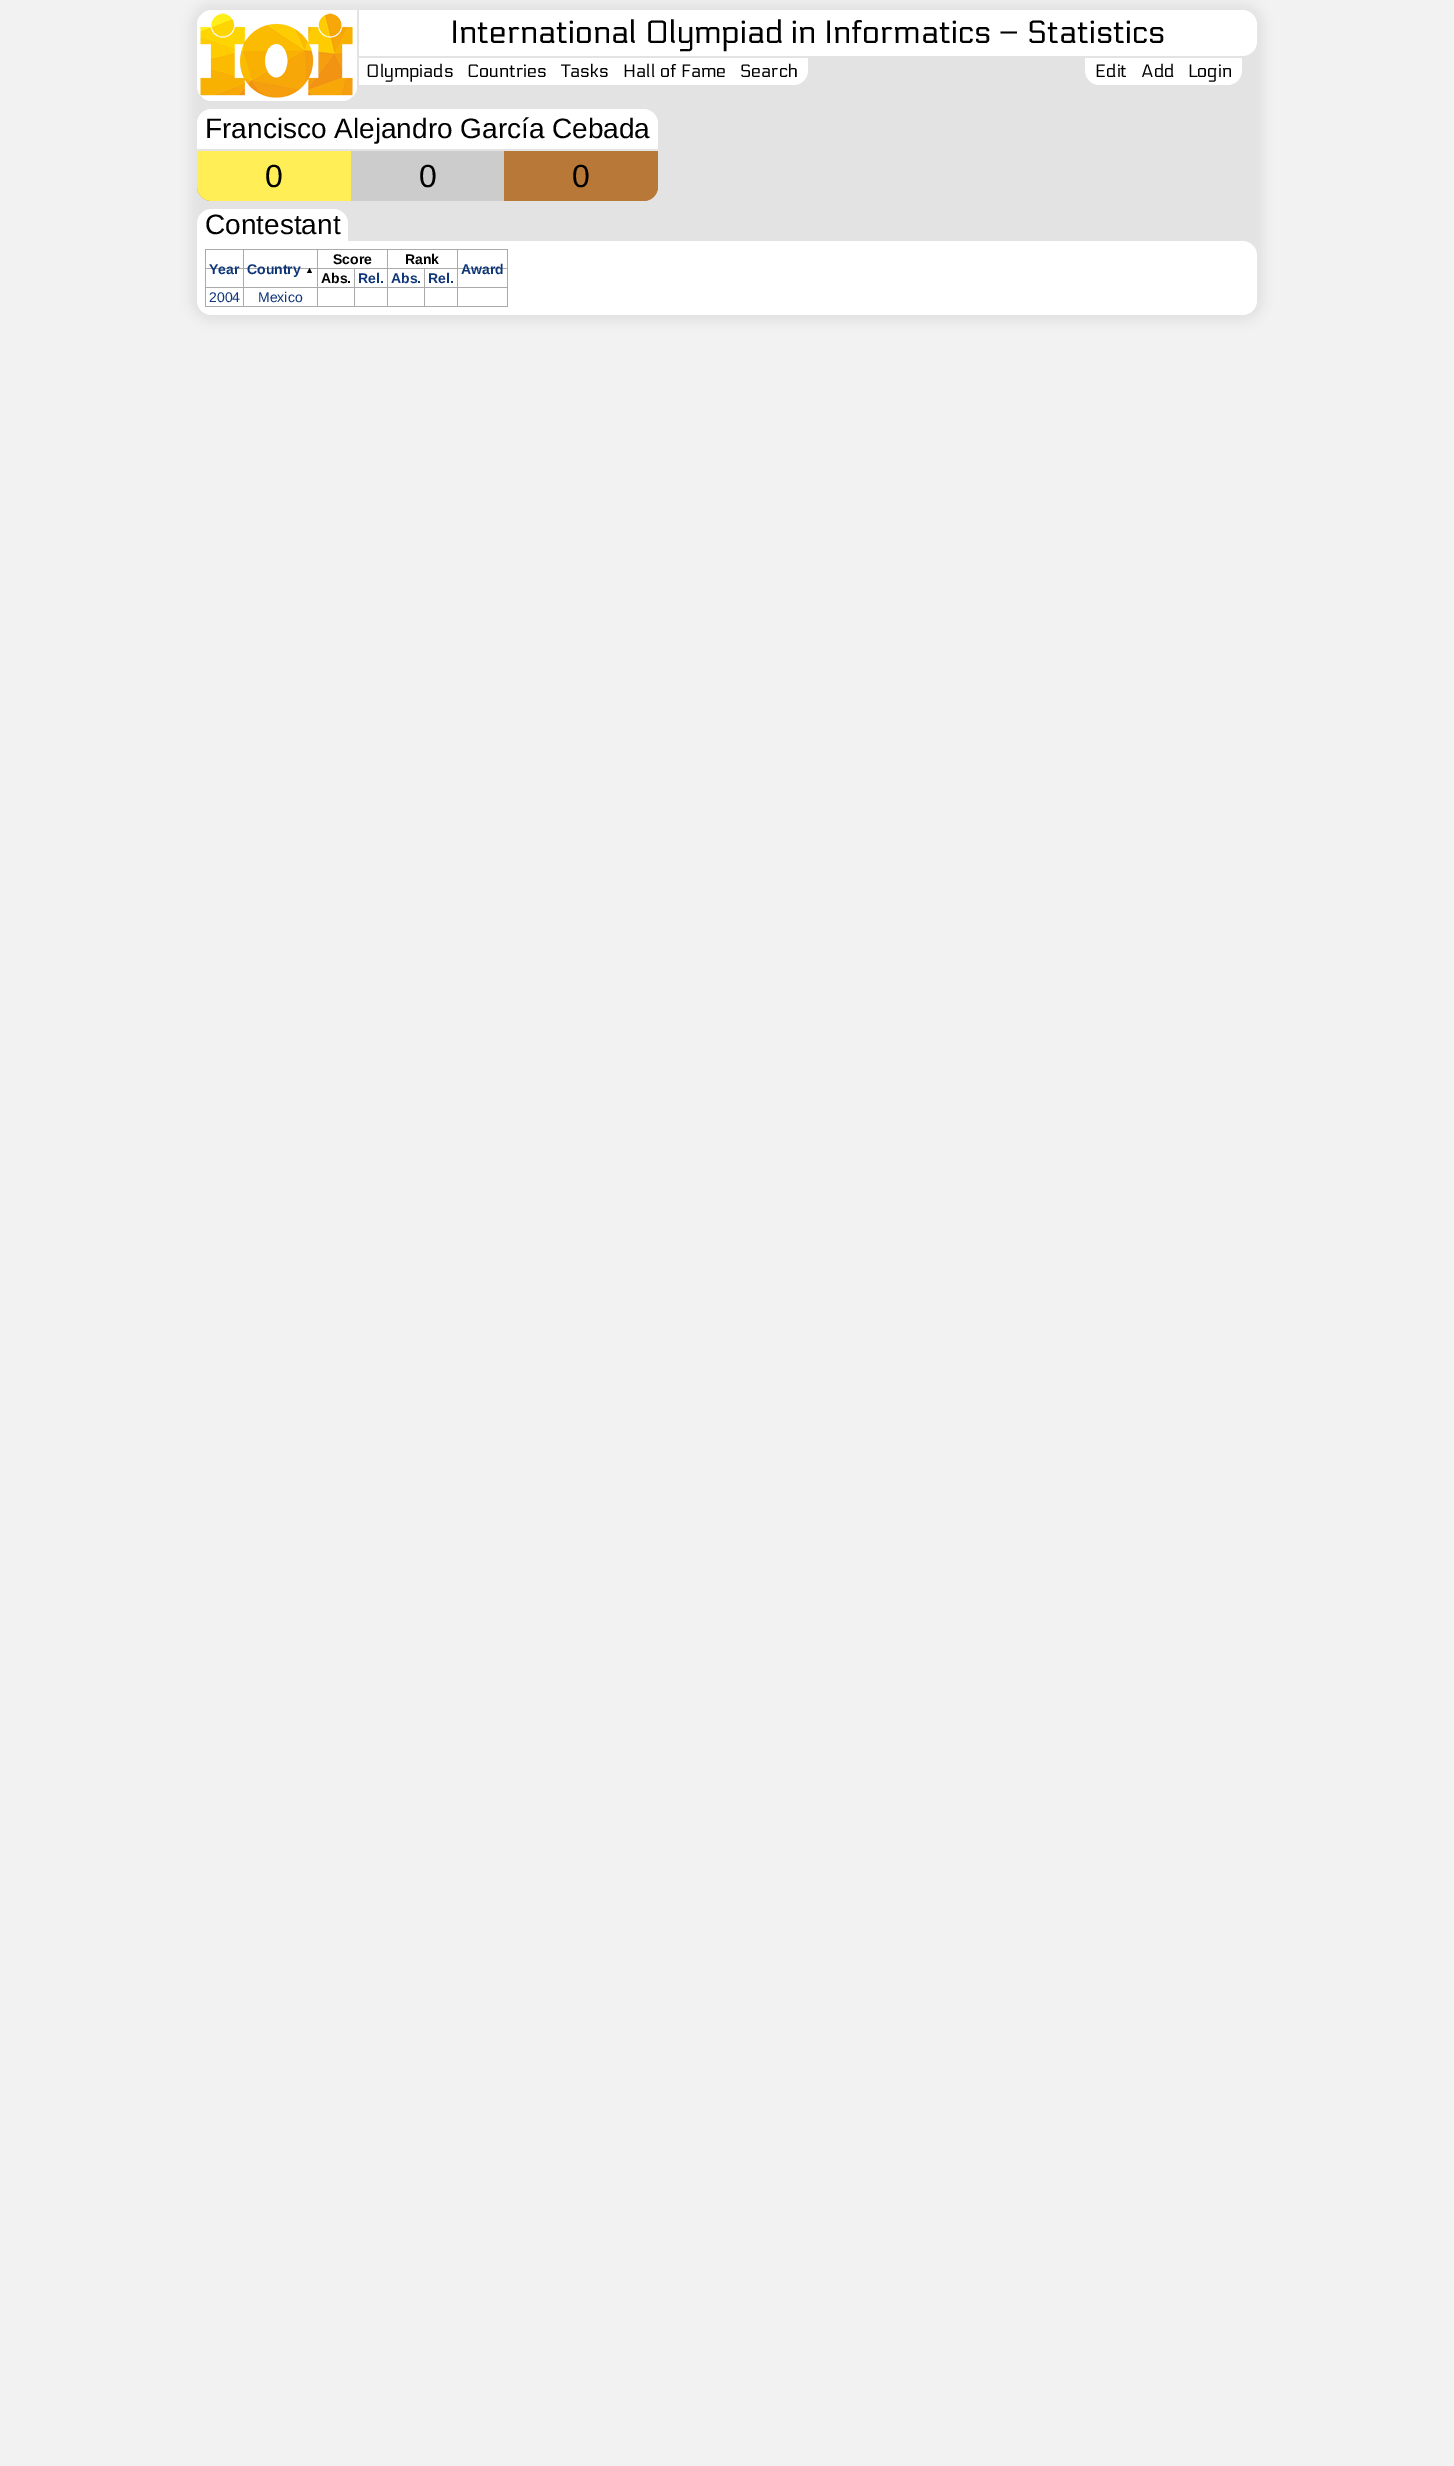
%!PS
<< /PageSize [1454 2466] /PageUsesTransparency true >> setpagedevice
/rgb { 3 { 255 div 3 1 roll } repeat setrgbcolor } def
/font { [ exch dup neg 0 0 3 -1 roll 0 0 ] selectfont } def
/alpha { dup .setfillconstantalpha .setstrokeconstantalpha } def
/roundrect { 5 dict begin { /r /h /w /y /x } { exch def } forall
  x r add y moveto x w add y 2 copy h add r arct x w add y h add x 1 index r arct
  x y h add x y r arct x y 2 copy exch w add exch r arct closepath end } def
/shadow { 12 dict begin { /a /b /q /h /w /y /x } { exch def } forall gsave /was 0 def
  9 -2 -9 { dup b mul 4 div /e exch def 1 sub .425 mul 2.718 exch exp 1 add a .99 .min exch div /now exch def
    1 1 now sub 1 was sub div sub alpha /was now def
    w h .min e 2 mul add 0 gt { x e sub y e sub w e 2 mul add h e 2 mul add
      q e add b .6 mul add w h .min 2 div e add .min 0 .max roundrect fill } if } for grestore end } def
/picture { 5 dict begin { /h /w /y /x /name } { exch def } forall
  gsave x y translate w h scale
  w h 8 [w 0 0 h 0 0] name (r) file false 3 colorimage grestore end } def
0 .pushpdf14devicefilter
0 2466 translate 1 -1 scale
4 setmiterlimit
242 242 242 rgb
0 0 1454 2466 rectfill
226 226 226 rgb
190 3 1074 319 22 5 1 shadow
255 255 255 rgb
212 10 moveto 357 10 lineto 357 86 lineto 357 94.5 350.5 101 342 101 curveto 212 101 lineto 203.5 101 197 94.5 197 86 curveto 197 25 lineto 197 16.5 203.5 10 212 10 curveto closepath fill
(img/1.rgb) 200 13 153 85 picture
359 10 moveto 1242 10 lineto 1250.5 10 1257 16.5 1257 25 curveto 1257 41 lineto 1257 49.5 1250.5 56 1242 56 curveto 359 56 lineto closepath fill
359 58 374 27 rectfill
733 58 moveto 808 58 lineto 808 70 lineto 808 78.5 801.5 85 793 85 curveto 733 85 lineto closepath fill
1085 58 moveto 1134 58 lineto 1134 85 lineto 1100 85 lineto 1091.5 85 1085 78.5 1085 70 curveto closepath fill
1134 58 47 27 rectfill
1181 58 moveto 1242 58 lineto 1242 70 lineto 1242 78.5 1235.5 85 1227 85 curveto 1181 85 lineto closepath fill
212 109 moveto 643 109 lineto 651.5 109 658 115.5 658 124 curveto 658 149 lineto 197 149 lineto 197 124 lineto 197 115.5 203.5 109 212 109 curveto closepath fill
184 120 56 rgb
197 151 moveto 658 151 lineto 658 186 lineto 658 194.5 651.5 201 643 201 curveto 212 201 lineto 203.5 201 197 194.5 197 186 curveto closepath fill
255 238 85 rgb
197 151 moveto 351 151 lineto 351 201 lineto 212 201 lineto 203.5 201 197 194.5 197 186 curveto closepath fill
204 204 204 rgb
351 151 153 50 rectfill
184 120 56 rgb
504 151 moveto 658 151 lineto 658 186 lineto 658 194.5 651.5 201 643 201 curveto 519 201 lineto 510.5 201 504 194.5 504 186 curveto closepath fill
255 255 255 rgb
212 209 moveto 333 209 lineto 341.5 209 348 215.5 348 224 curveto 348 241 lineto 197 241 lineto 197 224 lineto 197 215.5 203.5 209 212 209 curveto closepath fill
197 241 moveto 1242 241 lineto 1250.5 241 1257 247.5 1257 256 curveto 1257 300 lineto 1257 308.5 1250.5 315 1242 315 curveto 212 315 lineto 203.5 315 197 308.5 197 300 curveto closepath fill
[
  [205 249 303 1 170 170 170]
  [507 249 1 58 170 170 170]
  [205 306 303 1 170 170 170]
  [205 249 1 58 170 170 170]
  [205 268 303 1 170 170 170]
  [205 287 303 1 170 170 170]
  [243 249 1 58 170 170 170]
  [317 249 1 58 170 170 170]
  [354 268 1 39 170 170 170]
  [387 249 1 58 170 170 170]
  [424 268 1 39 170 170 170]
  [457 249 1 58 170 170 170]
] { aload pop rgb rectfill } forall
/Electrolize-Regular 32 font
0 0 0 rgb
450 43 moveto (International Olympiad in Informatics – Statistics) show
/Electrolize-Regular 18 font
[
  [(Olympiads) 366 77]
  [(Countries) 467 77]
  [(Tasks) 561 77]
  [(Hall of Fame) 623 77]
  [(Search) 740 77]
  [(Edit) 1095 77]
  [(Add) 1141 77]
  [(Login) 1188 77]
] { aload pop moveto show } forall
/LiberationSans-Regular 28 font
205 138 moveto (Francisco Alejandro García Cebada) show
/LiberationSans-Regular 32 font
[
  [(0) 265 187]
  [(0) 419 187]
  [(0) 572 187]
] { aload pop moveto show } forall
/LiberationSans-Regular 28 font
205 234 moveto (Contestant) show
/LiberationSans-Bold 14 font
333 264 moveto (Score) show
405 264 moveto (Rank) show
15 54 120 rgb
209 274 moveto (Year) show
247 274 moveto (Country) show
/LiberationSans-Bold 9 font
0 0 0 rgb
305 273 moveto (▲) show
/LiberationSans-Bold 14 font
15 54 120 rgb
461 274 moveto (Award) show
0 0 0 rgb
321 283 moveto (Abs.) show
15 54 120 rgb
[
  [(Rel.) 358 283]
  [(Abs.) 391 283]
  [(Rel.) 428 283]
] { aload pop moveto show } forall
/LiberationSans-Regular 14 font
209 302 moveto (2004) show
258 302 moveto (Mexico) show
.poppdf14devicefilter showpage
